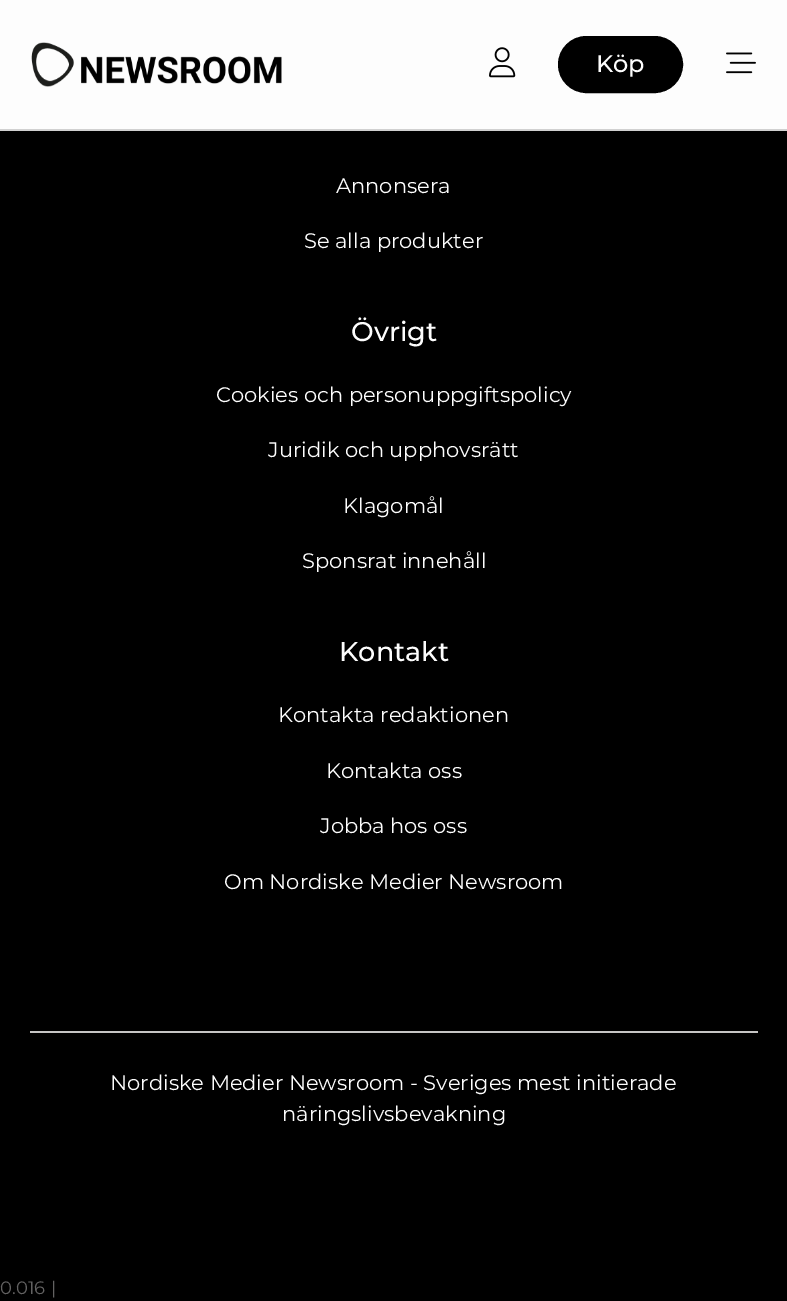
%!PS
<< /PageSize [787 1301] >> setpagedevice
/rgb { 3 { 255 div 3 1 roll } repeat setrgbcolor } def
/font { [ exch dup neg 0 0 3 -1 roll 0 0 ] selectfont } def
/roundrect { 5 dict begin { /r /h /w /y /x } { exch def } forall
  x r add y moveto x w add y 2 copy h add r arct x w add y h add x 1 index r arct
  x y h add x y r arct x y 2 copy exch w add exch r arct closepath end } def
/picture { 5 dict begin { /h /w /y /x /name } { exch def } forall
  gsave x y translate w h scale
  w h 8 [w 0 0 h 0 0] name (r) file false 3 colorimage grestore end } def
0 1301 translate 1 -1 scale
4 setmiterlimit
0 0 0 rgb
0 0 787 1301 rectfill
253 253 253 rgb
0 0 787 129 rectfill
209 209 209 rgb
0 129 787 2 rectfill
(img/1.rgb) 31 42 251 45 picture
(img/2.rgb) 489 47 27 31 picture
0 0 0 rgb
559 37 123 55 27.5 roundrect gsave fill grestore
2 setlinewidth
stroke
(img/3.rgb) 726 52 30 22 picture
198 197 196 rgb
30 1031 728 2 rectfill
/Montserrat-Medium 24 font
253 253 253 rgb
596 72 moveto (Köp) show
/Montserrat-Regular 21 font
336 193 moveto (Annonsera) show
304 248 moveto (Se alla produkter) show
/Montserrat-Medium 27 font
351 341 moveto (Övrigt) show
/Montserrat-Regular 21 font
[
  [(Cookies och personuppgiftspolicy) 216 402]
  [(Juridik och upphovsrätt) 268 457]
  [(Klagomål) 343 513]
  [(Sponsrat innehåll) 302 568]
] { aload pop moveto show } forall
/Montserrat-Medium 27 font
339 661 moveto (Kontakt) show
/Montserrat-Regular 21 font
[
  [(Kontakta redaktionen) 278 722]
  [(Kontakta oss) 326 778]
  [(Jobba hos oss) 320 833]
  [(Om Nordiske Medier Newsroom) 224 889]
  [(Nordiske Medier Newsroom - Sveriges mest initierade) 110 1090]
  [(näringslivsbevakning) 282 1121]
] { aload pop moveto show } forall
/Montserrat-Regular 18 font
99 98 98 rgb
0 1294 moveto (0.016) show
51 1294 moveto (|) show
showpage
